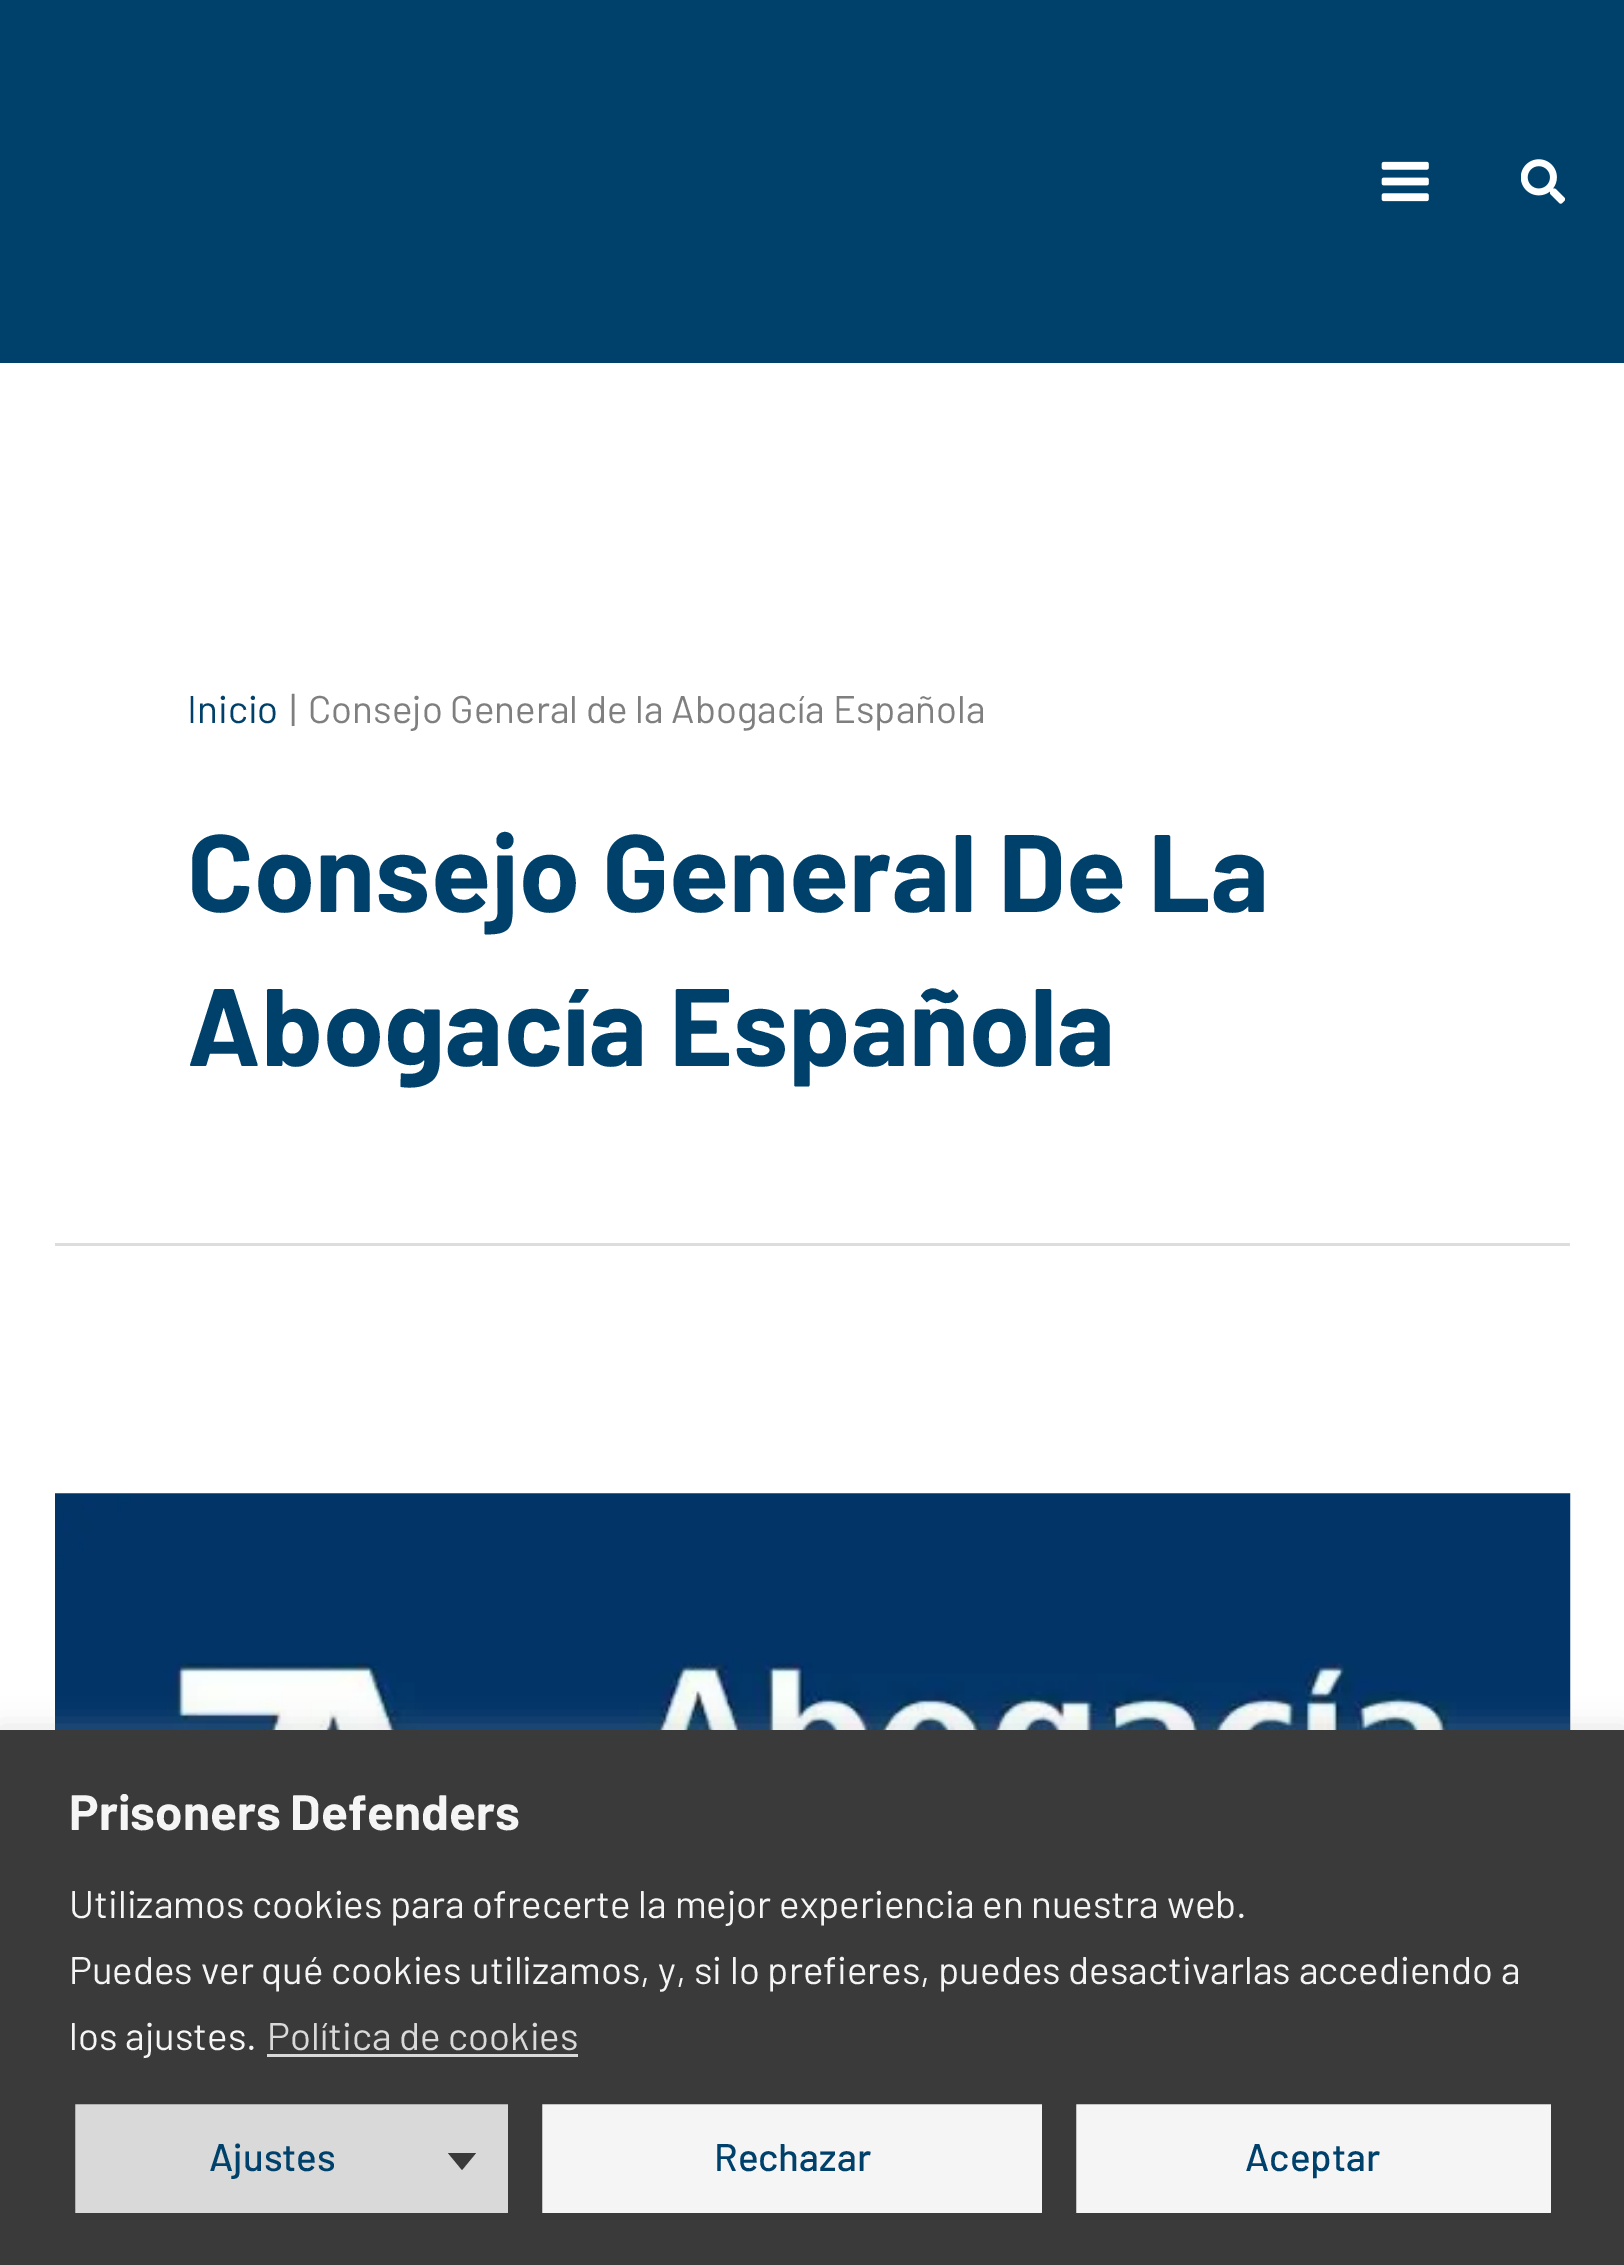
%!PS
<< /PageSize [1624 2265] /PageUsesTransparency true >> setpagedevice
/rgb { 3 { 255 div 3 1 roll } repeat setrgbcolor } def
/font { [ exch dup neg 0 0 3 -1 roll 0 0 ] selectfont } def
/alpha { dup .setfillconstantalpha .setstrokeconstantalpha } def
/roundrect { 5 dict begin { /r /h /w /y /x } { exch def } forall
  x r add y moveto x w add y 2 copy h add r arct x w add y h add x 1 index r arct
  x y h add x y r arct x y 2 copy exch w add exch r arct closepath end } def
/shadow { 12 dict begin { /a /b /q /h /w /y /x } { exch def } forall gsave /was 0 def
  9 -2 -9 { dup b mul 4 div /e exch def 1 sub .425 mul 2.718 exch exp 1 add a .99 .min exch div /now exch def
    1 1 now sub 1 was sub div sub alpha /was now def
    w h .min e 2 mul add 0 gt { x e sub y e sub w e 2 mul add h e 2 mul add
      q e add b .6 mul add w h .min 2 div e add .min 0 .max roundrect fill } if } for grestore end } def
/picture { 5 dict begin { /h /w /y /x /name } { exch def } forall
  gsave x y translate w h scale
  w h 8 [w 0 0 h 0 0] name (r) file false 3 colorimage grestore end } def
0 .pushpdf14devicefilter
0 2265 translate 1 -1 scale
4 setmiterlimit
255 255 255 rgb
0 0 1624 2265 rectfill
0 65 107 rgb
0 0 1624 363 rectfill
(img/1.rgb) 1381 161 48 41 picture
(img/2.rgb) 1521 159 44 45 picture
221 221 221 rgb
55 1243 1515 3 rectfill
(img/3.rgb) 55 1493 1516 237 picture
172 171 171 rgb
0 1727 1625 536 0 14 0.3 shadow
58 58 58 rgb
0 1730 1624 535 rectfill
217 217 217 rgb
267 2054 311 3 rectfill
72 2101 439 115 3 roundrect gsave fill grestore
58 58 58 rgb
6 setlinewidth
stroke
448 2153 moveto 476 2153 lineto 462 2170 lineto closepath fill
245 245 245 rgb
539 2101 506 115 3 roundrect gsave fill grestore
58 58 58 rgb
stroke
245 245 245 rgb
1073 2101 481 115 3 roundrect gsave fill grestore
58 58 58 rgb
stroke
/Barlow-Regular 38.5 font
0 65 107 rgb
187 723 moveto (Inicio) show
127 127 127 rgb
290 723 moveto (|) show
308 723 moveto (Consejo General de la Abogacía Española) show
/Barlow-Bold 110 font
0 65 107 rgb
187 912 moveto (Consejo General De La) show
187 1066 moveto (Abogacía Española) show
/Barlow-Bold 49.5 font
245 245 245 rgb
69 1830 moveto (Prisoners Defenders) show
/Barlow-Regular 38.5 font
[
  [(Utilizamos cookies para ofrecerte la mejor experiencia en nuestra web.) 69 1918]
  [(Puedes ver qué cookies utilizamos, y, si lo prefieres, puedes desactivarlas accediendo a) 69 1984]
  [(los ajustes.) 69 2050]
] { aload pop moveto show } forall
217 217 217 rgb
267 2050 moveto (Política de cookies) show
/Barlow-Medium 38.5 font
0 65 107 rgb
[
  [(Ajustes) 209 2171]
  [(Rechazar) 714 2171]
  [(Aceptar) 1245 2171]
] { aload pop moveto show } forall
.poppdf14devicefilter showpage
